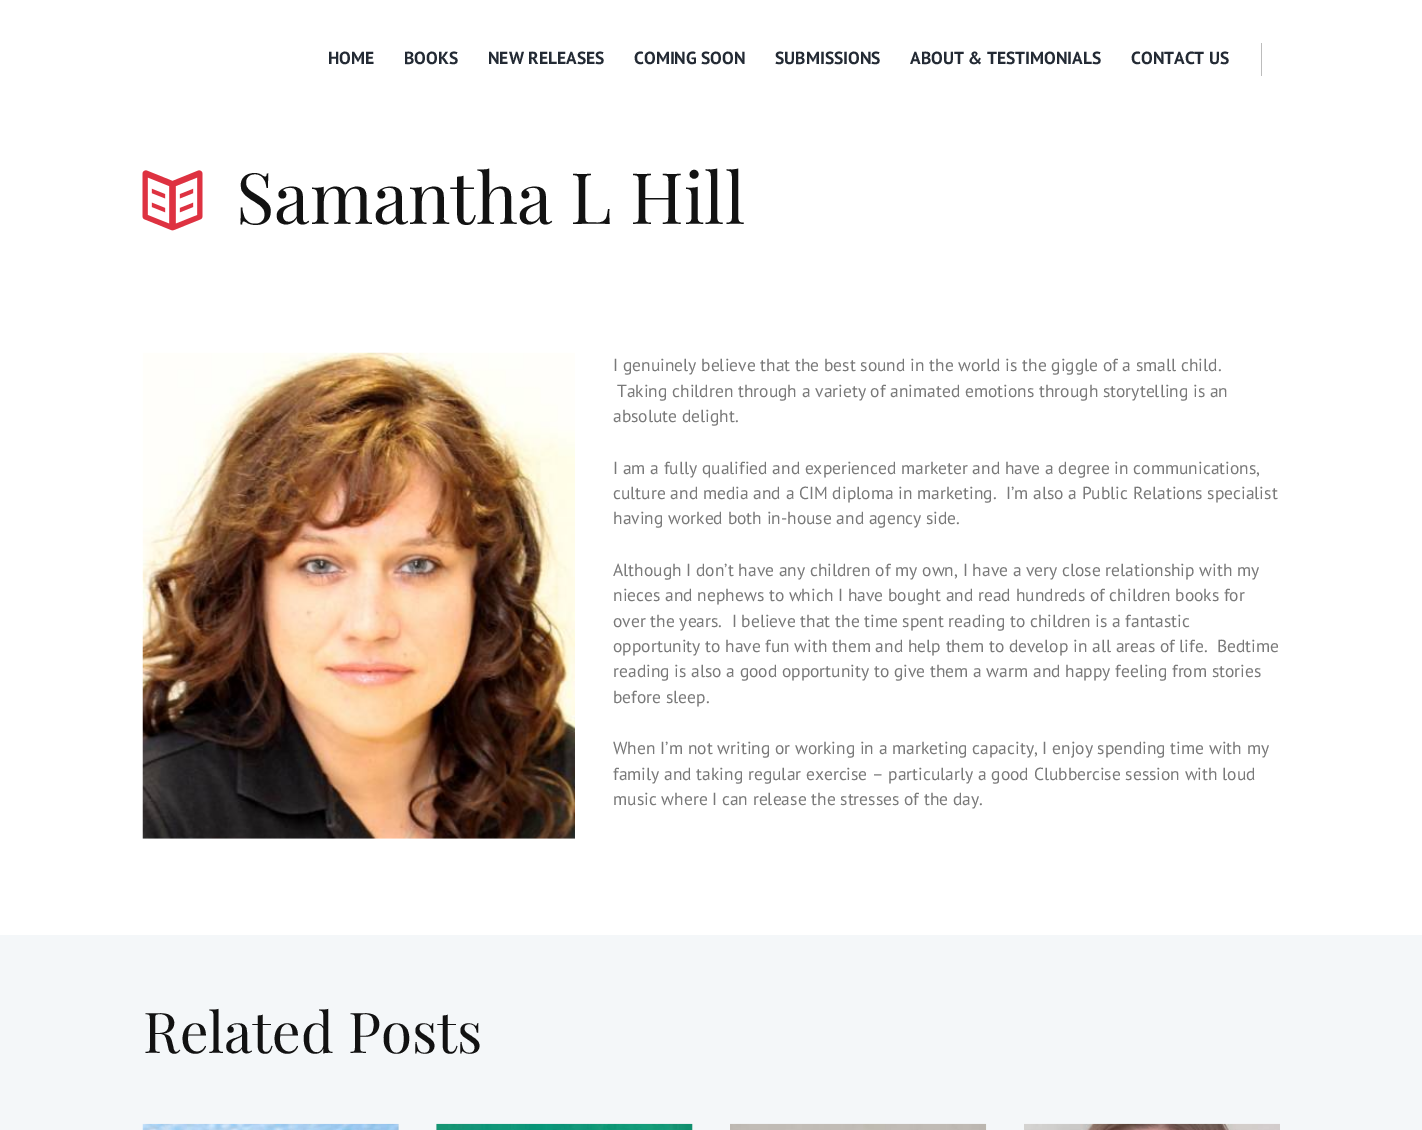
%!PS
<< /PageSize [1422 1130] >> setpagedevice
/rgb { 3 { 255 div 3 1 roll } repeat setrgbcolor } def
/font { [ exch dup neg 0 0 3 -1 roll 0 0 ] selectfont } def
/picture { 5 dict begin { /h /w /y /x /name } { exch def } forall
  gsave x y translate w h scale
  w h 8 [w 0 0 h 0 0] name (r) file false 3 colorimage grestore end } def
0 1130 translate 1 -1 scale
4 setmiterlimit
255 255 255 rgb
0 0 1422 1130 rectfill
188 188 188 rgb
1261 43 1 33 rectfill
(img/1.rgb) 142 170 61 61 picture
(img/2.rgb) 142 352 433 487 picture
244 247 249 rgb
0 935 1422 195 rectfill
238 238 238 rgb
398 1124 1 6 rectfill
(img/3.rgb) 142 1123 257 7 picture
436 1124 257 6 rectfill
(img/4.rgb) 436 1123 257 7 picture
(img/5.rgb) 730 1123 257 7 picture
(img/6.rgb) 1024 1123 256 7 picture
/PTSans-Bold 17.5 font
35 42 52 rgb
[
  [(HOME) 328 64]
  [(BOOKS) 404 64]
  [(NEW RELEASES) 488 64]
  [(COMING SOON) 634 64]
  [(SUBMISSIONS) 775 64]
  [(ABOUT & TESTIMONIALS) 910 64]
  [(CONTACT US) 1131 64]
] { aload pop moveto show } forall
/PlayfairDisplay-Regular 71 font
18 18 18 rgb
236 224 moveto (Samantha L Hill) show
/PTSans-Regular 17.5 font
121 121 121 rgb
[
  [(I genuinely believe that the best sound in the world is the giggle of a small child.) 613 371]
  [(Taking children through a variety of animated emotions through storytelling is an) 617 397]
  [(absolute delight.) 613 422]
  [(I am a fully qualified and experienced marketer and have a degree in communications,) 613 474]
  [(culture and media and a CIM diploma in marketing.  I’m also a Public Relations specialist) 613 499]
  [(having worked both in-house and agency side.) 613 524]
  [(Although I don’t have any children of my own, I have a very close relationship with my) 613 576]
  [(nieces and nephews to which I have bought and read hundreds of children books for) 613 601]
  [(over the years.  I believe that the time spent reading to children is a fantastic) 613 627]
  [(opportunity to have fun with them and help them to develop in all areas of life.  Bedtime) 613 652]
  [(reading is also a good opportunity to give them a warm and happy feeling from stories) 613 677]
  [(before sleep.) 613 703]
  [(When I’m not writing or working in a marketing capacity, I enjoy spending time with my) 613 754]
  [(family and taking regular exercise – particularly a good Clubbercise session with loud) 613 780]
  [(music where I can release the stresses of the day.) 613 805]
] { aload pop moveto show } forall
/PlayfairDisplay-Regular 56.5 font
18 18 18 rgb
143 1053 moveto (Related Posts) show
showpage
